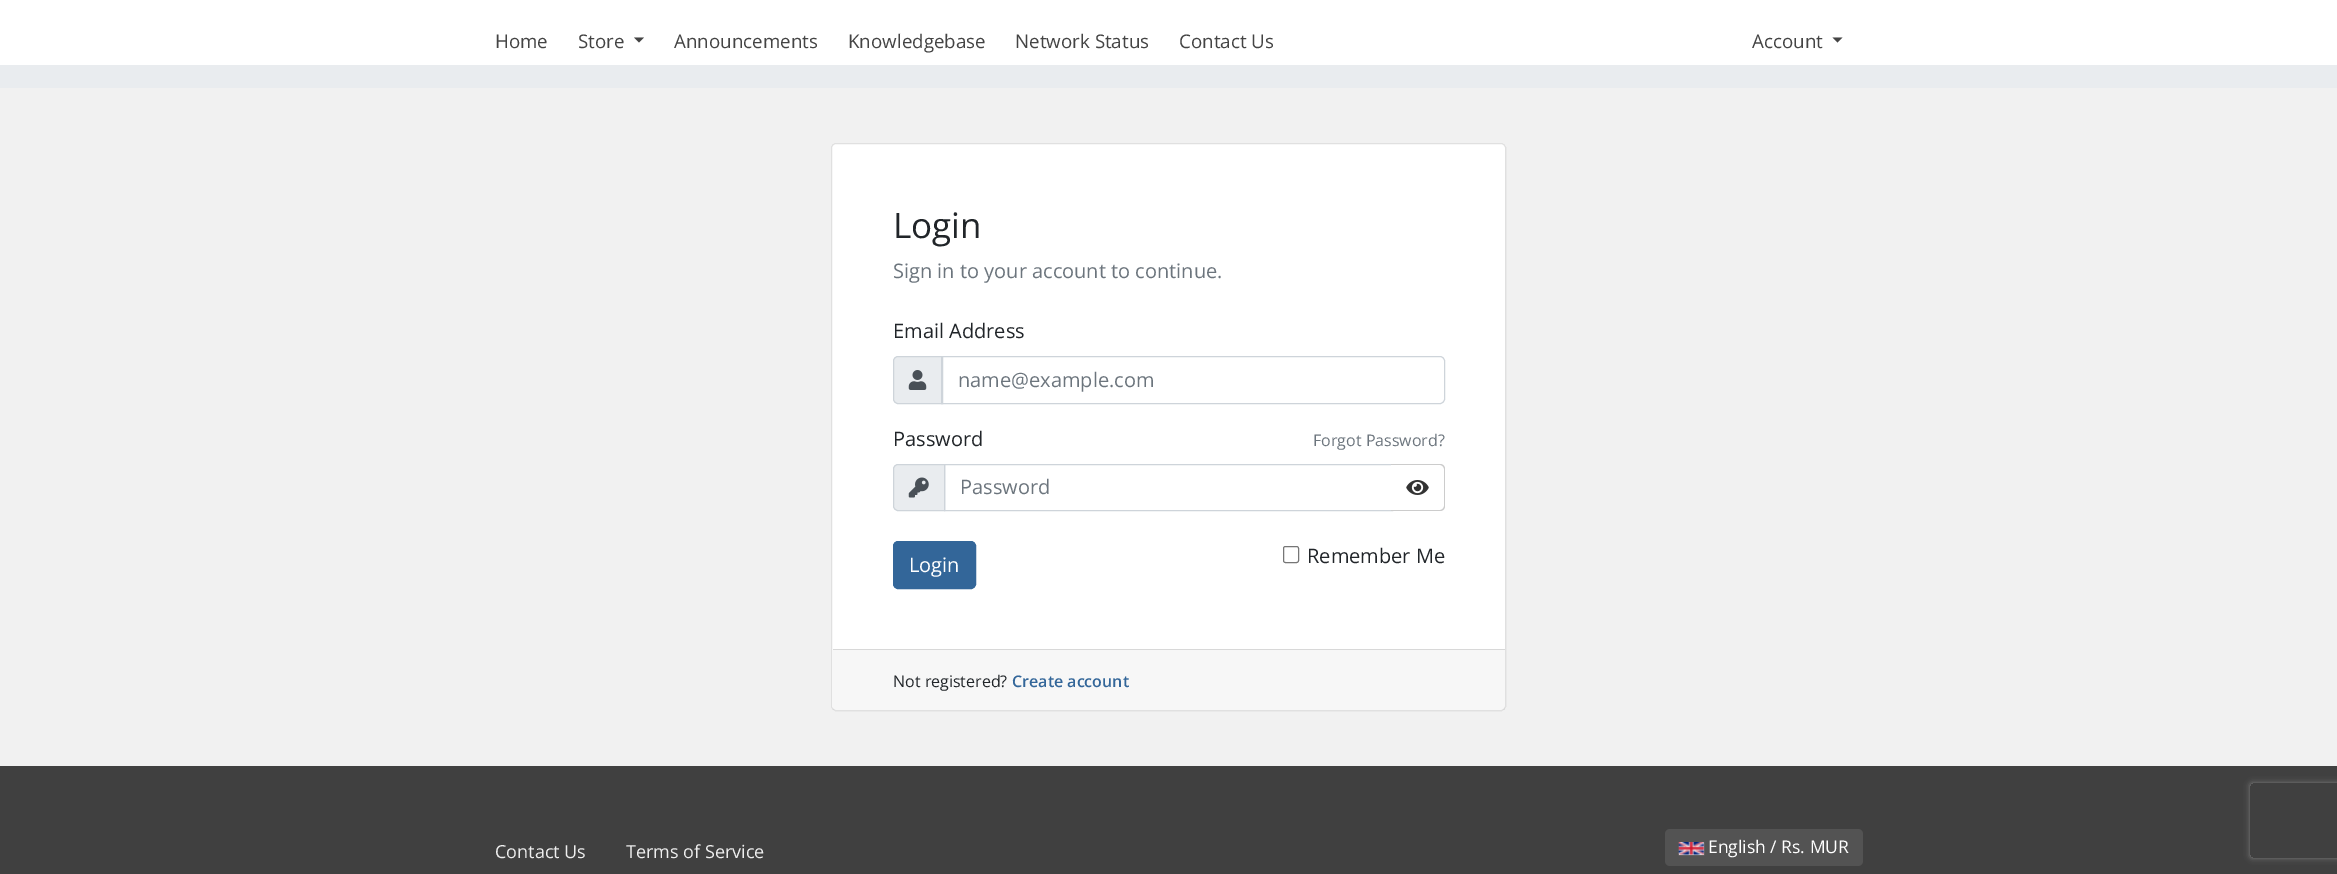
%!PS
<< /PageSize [2337 874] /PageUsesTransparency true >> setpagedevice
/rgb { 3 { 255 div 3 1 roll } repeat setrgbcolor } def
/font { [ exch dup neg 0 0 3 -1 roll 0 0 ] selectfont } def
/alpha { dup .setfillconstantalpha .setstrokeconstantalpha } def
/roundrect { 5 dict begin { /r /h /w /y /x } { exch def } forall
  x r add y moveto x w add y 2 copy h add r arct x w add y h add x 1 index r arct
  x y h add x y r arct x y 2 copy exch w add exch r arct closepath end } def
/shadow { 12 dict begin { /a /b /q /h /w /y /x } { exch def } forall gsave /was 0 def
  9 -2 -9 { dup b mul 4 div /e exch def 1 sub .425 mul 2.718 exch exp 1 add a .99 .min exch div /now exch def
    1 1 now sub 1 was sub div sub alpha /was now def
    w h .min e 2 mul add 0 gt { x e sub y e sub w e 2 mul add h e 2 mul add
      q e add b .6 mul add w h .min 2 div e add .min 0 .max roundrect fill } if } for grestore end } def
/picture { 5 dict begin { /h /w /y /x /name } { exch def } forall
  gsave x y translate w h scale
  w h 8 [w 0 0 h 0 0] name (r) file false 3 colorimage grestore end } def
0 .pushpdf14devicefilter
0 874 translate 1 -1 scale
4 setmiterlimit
241 241 241 rgb
0 0 2337 874 rectfill
255 255 255 rgb
0 0 2337 65 rectfill
68 68 68 rgb
634 37.5 moveto 644 37.5 lineto 639 42.5 lineto closepath fill
1832.5 37.5 moveto 1842.5 37.5 lineto 1837.5 42.5 lineto closepath fill
233 236 239 rgb
0 65 2337 23 rectfill
255 255 255 rgb
831 143 675 568 5 roundrect fill
0.12 alpha
0 0 0 rgb
831.5 143.5 674 567 4.5 roundrect stroke
1 alpha
233 236 239 rgb
898 356.5 moveto 942.5 356.5 lineto 942.5 403.5 lineto 898 403.5 lineto 895.5 403.5 893.5 401.5 893.5 399 curveto 893.5 361 lineto 893.5 358.5 895.5 356.5 898 356.5 curveto closepath gsave fill grestore
206 212 218 rgb
stroke
(img/1.rgb) 908 370 19 20 picture
941.5 356.5 moveto 1440 356.5 lineto 1442.5 356.5 1444.5 358.5 1444.5 361 curveto 1444.5 399 lineto 1444.5 401.5 1442.5 403.5 1440 403.5 curveto 941.5 403.5 lineto closepath stroke
233 236 239 rgb
898 464.5 moveto 944.5 464.5 lineto 944.5 510.5 lineto 898 510.5 lineto 895.5 510.5 893.5 508.5 893.5 506 curveto 893.5 469 lineto 893.5 466.5 895.5 464.5 898 464.5 curveto closepath gsave fill grestore
206 212 218 rgb
stroke
(img/2.rgb) 908 477 21 21 picture
944.5 464.5 448 46 rectstroke
255 255 255 rgb
1391 464 moveto 1440 464 lineto 1443 464 1445 466 1445 469 curveto 1445 506 lineto 1445 509 1443 511 1440 511 curveto 1391 511 lineto closepath fill
204 204 204 rgb
1391 464 moveto 1440 464 lineto 1443 464 1445 466 1445 469 curveto 1445 506 lineto 1445 509 1443 511 1440 511 curveto 1391 511 lineto closepath 1391 465 moveto 1440 465 lineto 1442 465 1444 467 1444 469 curveto 1444 506 lineto 1444 508 1442 510 1440 510 curveto 1391 510 lineto closepath eofill
(img/3.rgb) 1406 480 23 15 picture
51 102 153 rgb
893.5 541.5 82 47 4.5 roundrect gsave fill grestore
stroke
118 118 118 rgb
1283.5 546.5 15 16 2 roundrect stroke
0.03 alpha
[
  [833 650 672 60 0 0 0]
] { aload pop rgb rectfill } forall
1 alpha
[
  [833 649 672 1 216 216 216]
  [0 766 2337 108 64 64 64]
] { aload pop rgb rectfill } forall
gsave
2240 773 moveto 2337 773 lineto 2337 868 lineto 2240 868 lineto closepath 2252.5 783 moveto 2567.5 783 lineto 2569 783 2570 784 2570 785.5 curveto 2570 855.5 lineto 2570 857 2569 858 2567.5 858 curveto 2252.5 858 lineto 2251 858 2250 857 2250 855.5 curveto 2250 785.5 lineto 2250 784 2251 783 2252.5 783 curveto closepath eoclip newpath
128 128 128 rgb
2250 783 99 75 2.5 3 1 shadow
grestore
83 83 83 rgb
1665 829 198 37 5 roundrect fill
136 136 136 rgb
1679 843 25 12 0 0.5 1 shadow
219 219 219 rgb
1679 843 25 12 rectfill
(img/4.rgb) 1678 842 26 13 picture
/OpenSans-Regular 18.75 font
68 68 68 rgb
[
  [(Home) 495 48]
  [(Store) 578 48]
  [(Announcements) 674 48]
  [(Knowledgebase) 848 48]
  [(Network Status) 1015 48]
  [(Contact Us) 1179 48]
  [(Account) 1752 48]
] { aload pop moveto show } forall
/OpenSans-Regular 35 font
33 37 41 rgb
893 238 moveto (Login) show
/OpenSans-Regular 20 font
108 117 125 rgb
893 278 moveto (Sign in to your account to continue.) show
33 37 41 rgb
893 338 moveto (Email Address) show
108 117 125 rgb
958 387 moveto (name@example.com) show
33 37 41 rgb
893 446 moveto (Password) show
/OpenSans-Regular 16 font
108 117 125 rgb
1313 446 moveto (Forgot Password?) show
/OpenSans-Regular 20 font
960 494 moveto (Password) show
255 255 255 rgb
909 572 moveto (Login) show
33 37 41 rgb
1307 563 moveto (Remember Me) show
/OpenSans-Regular 16 font
893 687 moveto (Not registered?) show
/OpenSans-SemiBold 16 font
51 102 153 rgb
1012 687 moveto (Create account) show
/OpenSans-Regular 18 font
238 238 238 rgb
495 858 moveto (Contact Us) show
626 858 moveto (Terms of Service) show
/OpenSans-Regular 17.5 font
255 255 255 rgb
1708 853 moveto (English / Rs. MUR) show
.poppdf14devicefilter showpage
